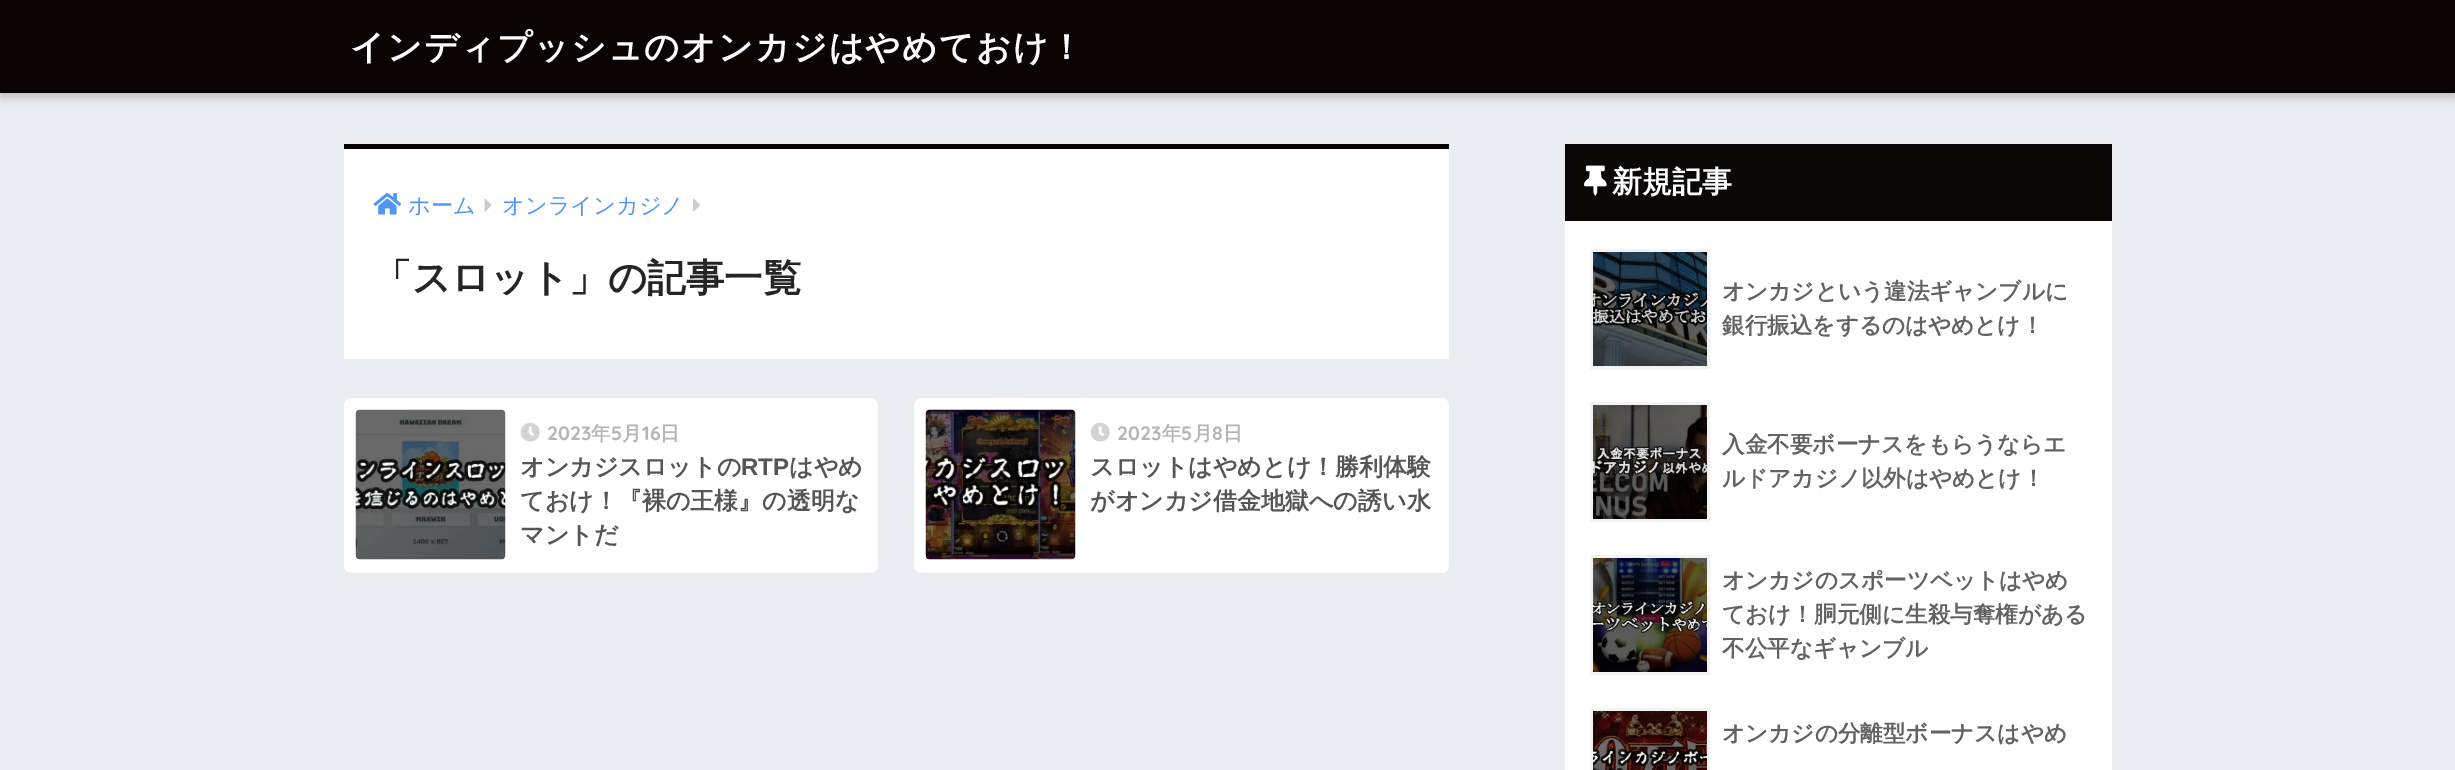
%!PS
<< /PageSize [2455 770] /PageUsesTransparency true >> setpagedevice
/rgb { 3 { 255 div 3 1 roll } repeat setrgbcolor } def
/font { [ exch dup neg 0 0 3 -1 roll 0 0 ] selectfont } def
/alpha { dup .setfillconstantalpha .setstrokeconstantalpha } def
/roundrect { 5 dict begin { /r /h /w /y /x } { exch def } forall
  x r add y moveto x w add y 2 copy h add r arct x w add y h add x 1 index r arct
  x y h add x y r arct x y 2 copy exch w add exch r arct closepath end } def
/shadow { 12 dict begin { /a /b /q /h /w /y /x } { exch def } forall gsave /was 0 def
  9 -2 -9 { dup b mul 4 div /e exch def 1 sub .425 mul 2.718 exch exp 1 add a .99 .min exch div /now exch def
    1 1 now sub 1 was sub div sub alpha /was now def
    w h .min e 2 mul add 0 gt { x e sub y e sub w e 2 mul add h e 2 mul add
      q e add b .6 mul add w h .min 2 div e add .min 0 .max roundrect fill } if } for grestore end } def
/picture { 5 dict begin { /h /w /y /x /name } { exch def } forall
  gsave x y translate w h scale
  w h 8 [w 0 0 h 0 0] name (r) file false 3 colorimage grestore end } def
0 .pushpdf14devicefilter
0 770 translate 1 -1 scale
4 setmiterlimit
234 237 242 rgb
0 0 2455 770 rectfill
0 0 0 rgb
0 5 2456 93 0 4.5 0.18 shadow
[
  [0 0 2455 93 10 3 3]
  [344 149 1105 210 255 255 255]
  [344 144 1105 5 10 3 3]
] { aload pop rgb rectfill } forall
(img/1.rgb) 373 193 29 22 picture
(img/2.rgb) 484 199 8 13 picture
(img/3.rgb) 693 199 7 12 picture
255 255 255 rgb
344 398 534 175 8 roundrect fill
(img/4.rgb) 355 409 151 151 picture
(img/5.rgb) 520 422 20 20 picture
914 398 535 175 8 roundrect fill
(img/6.rgb) 925 409 151 151 picture
(img/5.rgb) 1090 422 20 20 picture
1565 221 547 549 rectfill
10 7 7 rgb
1565 144 547 77 rectfill
(img/7.rgb) 1584 165 23 31 picture
243 243 243 rgb
3 setlinewidth
1591.5 250.5 117 117 rectstroke
(img/8.rgb) 1593 252 114 114 picture
1591.5 403.5 117 117 rectstroke
(img/9.rgb) 1593 405 114 114 picture
1591.5 556.5 117 117 rectstroke
(img/10.rgb) 1593 558 114 114 picture
1591.5 709.5 117 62 rectstroke
(img/11.rgb) 1593 711 114 59 picture
/WenQuanYiZenHei-Bold 34.5 font
255 255 255 rgb
350 59 moveto 1.5 0 (インディプッシュのオンカジはやめておけ！) ashow
/WenQuanYiZenHei-Medium 22.25 font
79 150 246 rgb
408 213 moveto (ホーム) show
502 213 moveto (オンラインカジノ) show
/WenQuanYiZenHei-Bold 38.5 font
37 37 37 rgb
373 291 moveto (「スロット」の記事一覧) show
/Quicksand-Bold 19.5 font
181 181 181 rgb
547 440 moveto (2023) show
/WenQuanYiZenHei-Bold 19.5 font
591 440 moveto (年) show
/Quicksand-Bold 19.5 font
611 440 moveto (5) show
/WenQuanYiZenHei-Bold 19.5 font
622 440 moveto (月) show
/Quicksand-Bold 19.5 font
642 440 moveto (16) show
/WenQuanYiZenHei-Bold 19.5 font
660 440 moveto (日) show
/WenQuanYiZenHei-Bold 24 font
85 85 85 rgb
520 475 moveto (オンカジスロットの) show
/LiberationSans-Bold 24 font
741 475 moveto (RTP) show
/WenQuanYiZenHei-Bold 24 font
[
  [(はやめ) 789 475]
  [(ておけ！『裸の王様』の透明な) 520 509]
  [(マントだ) 520 543]
] { aload pop moveto show } forall
/Quicksand-Bold 19.5 font
181 181 181 rgb
1117 440 moveto (2023) show
/WenQuanYiZenHei-Bold 19.5 font
1162 440 moveto (年) show
/Quicksand-Bold 19.5 font
1181 440 moveto (5) show
/WenQuanYiZenHei-Bold 19.5 font
1193 440 moveto (月) show
/Quicksand-Bold 19.5 font
1212 440 moveto (8) show
/WenQuanYiZenHei-Bold 19.5 font
1223 440 moveto (日) show
/WenQuanYiZenHei-Bold 24 font
85 85 85 rgb
1090 475 moveto (スロットはやめとけ！勝利体験) show
1090 509 moveto (がオンカジ借金地獄への誘い水) show
/WenQuanYiZenHei-Bold 30 font
255 255 255 rgb
1612 192 moveto (新規記事) show
/WenQuanYiZenHei-Bold 22.6 font
98 98 98 rgb
[
  [(オンカジという違法ギャンブルに) 1722 299]
  [(銀行振込をするのはやめとけ！) 1722 333]
  [(入金不要ボーナスをもらうならエ) 1722 452]
  [(ルドアカジノ以外はやめとけ！) 1722 486]
  [(オンカジのスポーツベットはやめ) 1722 588]
  [(ておけ！胴元側に生殺与奪権がある) 1722 622]
  [(不公平なギャンブル) 1722 656]
  [(オンカジの分離型ボーナスはやめ) 1722 741]
] { aload pop moveto show } forall
.poppdf14devicefilter showpage
